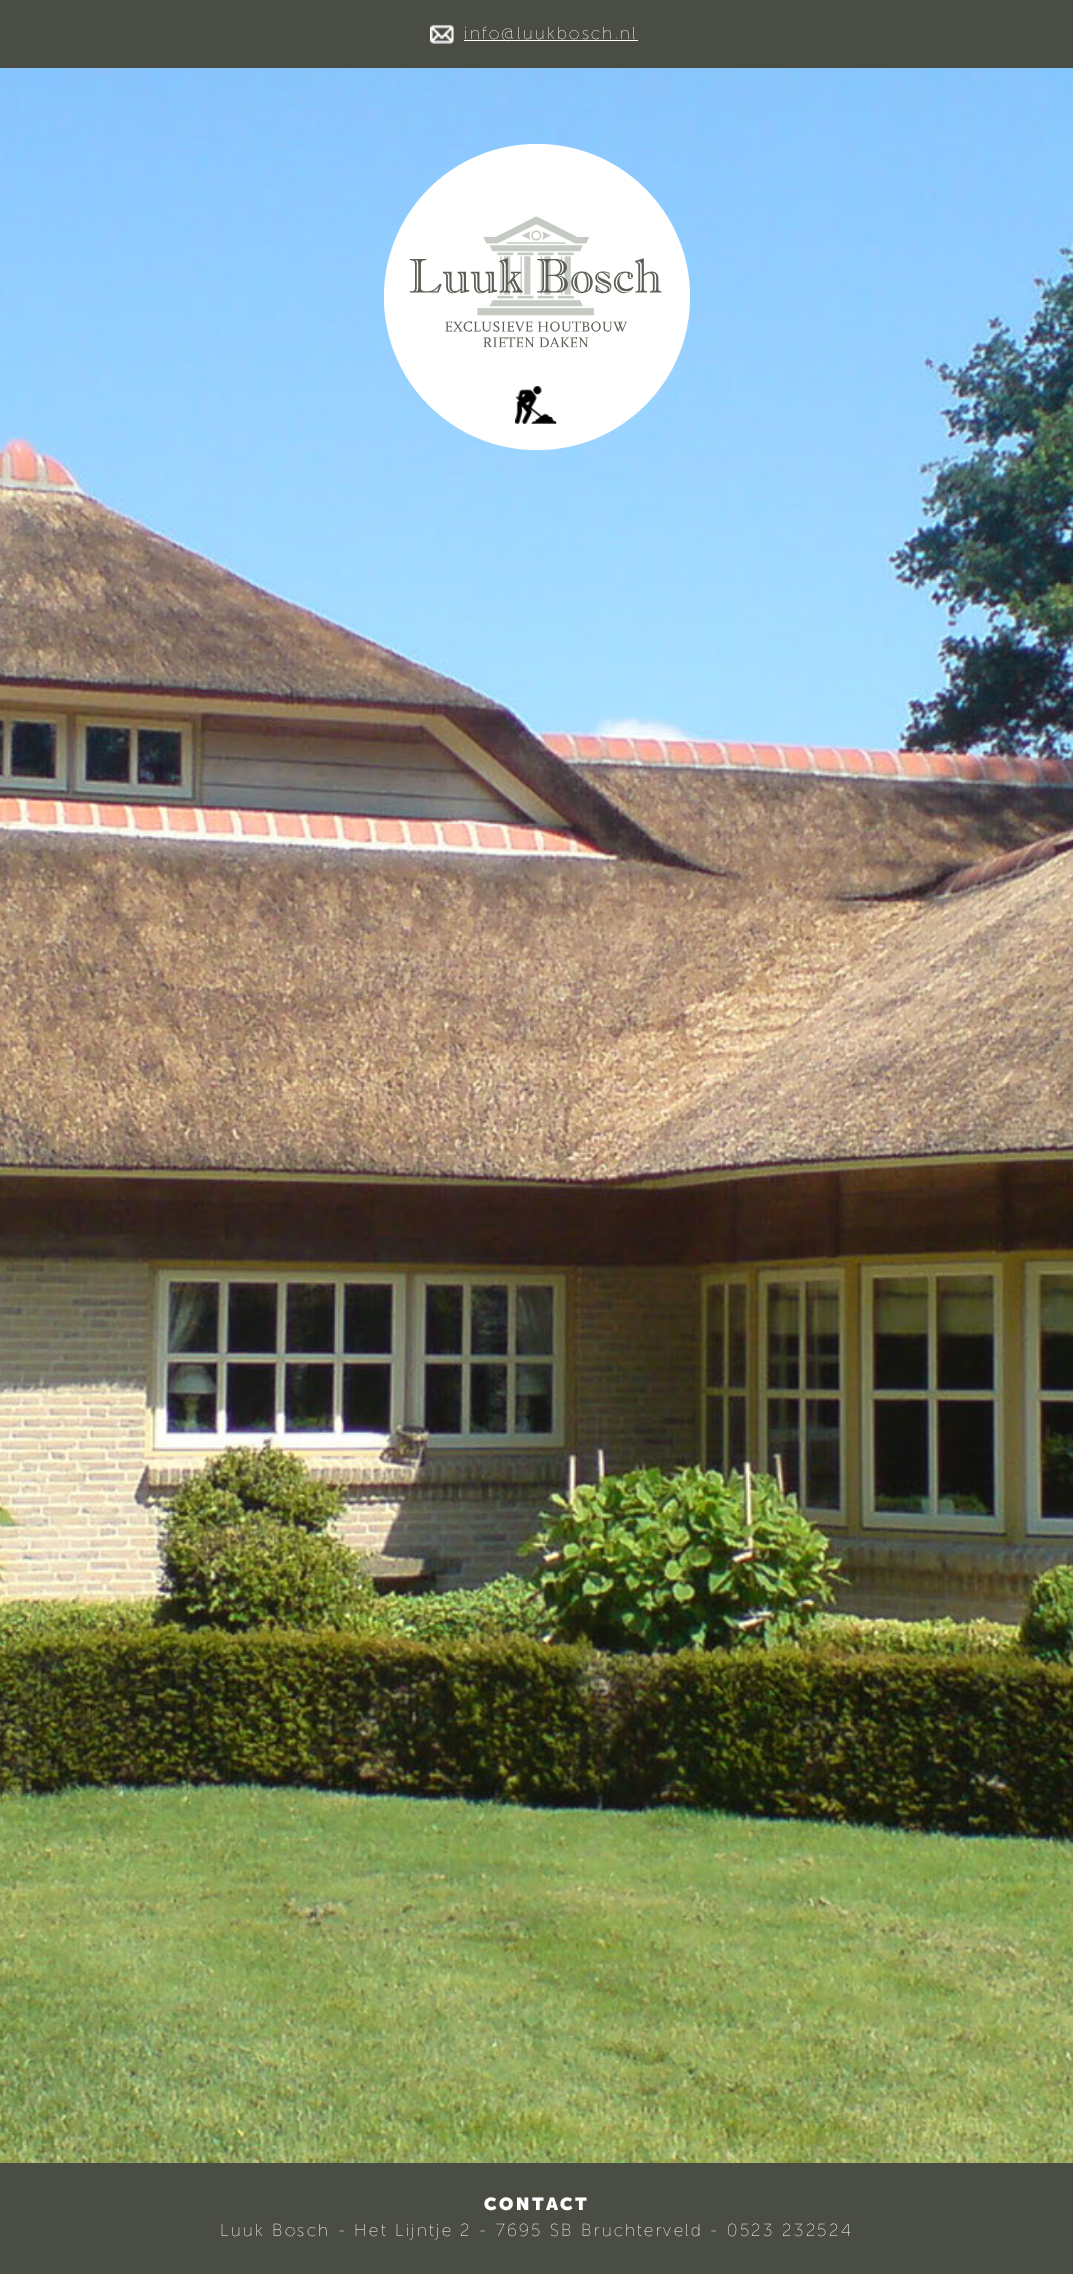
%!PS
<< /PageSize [1073 2274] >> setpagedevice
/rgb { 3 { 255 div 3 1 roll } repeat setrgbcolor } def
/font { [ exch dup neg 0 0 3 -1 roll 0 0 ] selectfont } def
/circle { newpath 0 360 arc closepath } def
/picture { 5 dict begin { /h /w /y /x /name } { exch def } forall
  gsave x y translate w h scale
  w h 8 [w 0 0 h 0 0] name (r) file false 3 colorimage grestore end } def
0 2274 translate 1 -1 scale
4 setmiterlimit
255 255 255 rgb
0 0 1073 2274 rectfill
(img/1.rgb) 0 68 1073 2095 picture
74 77 67 rgb
0 0 1073 68 rectfill
(img/2.rgb) 430 24 24 20 picture
255 255 255 rgb
464 40 174 1 rectfill
537 297 153 circle fill
(img/3.rgb) 409 216 253 132 picture
(img/4.rgb) 515 386 42 38 picture
74 77 67 rgb
0 2163 1073 111 rectfill
/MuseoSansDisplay-Light 17.5 font
255 255 255 rgb
464 39 moveto 2.5 0 (info@luukbosch.nl) ashow
/MuseoSansDisplay-Black 17.5 font
484 2210 moveto 2.5 0 (CONTACT) ashow
/MuseoSansDisplay-Light 17.5 font
220 2236 moveto 2.5 0 (Luuk Bosch - Het Lijntje 2 - 7695 SB Bruchterveld - 0523 232524) ashow
showpage
